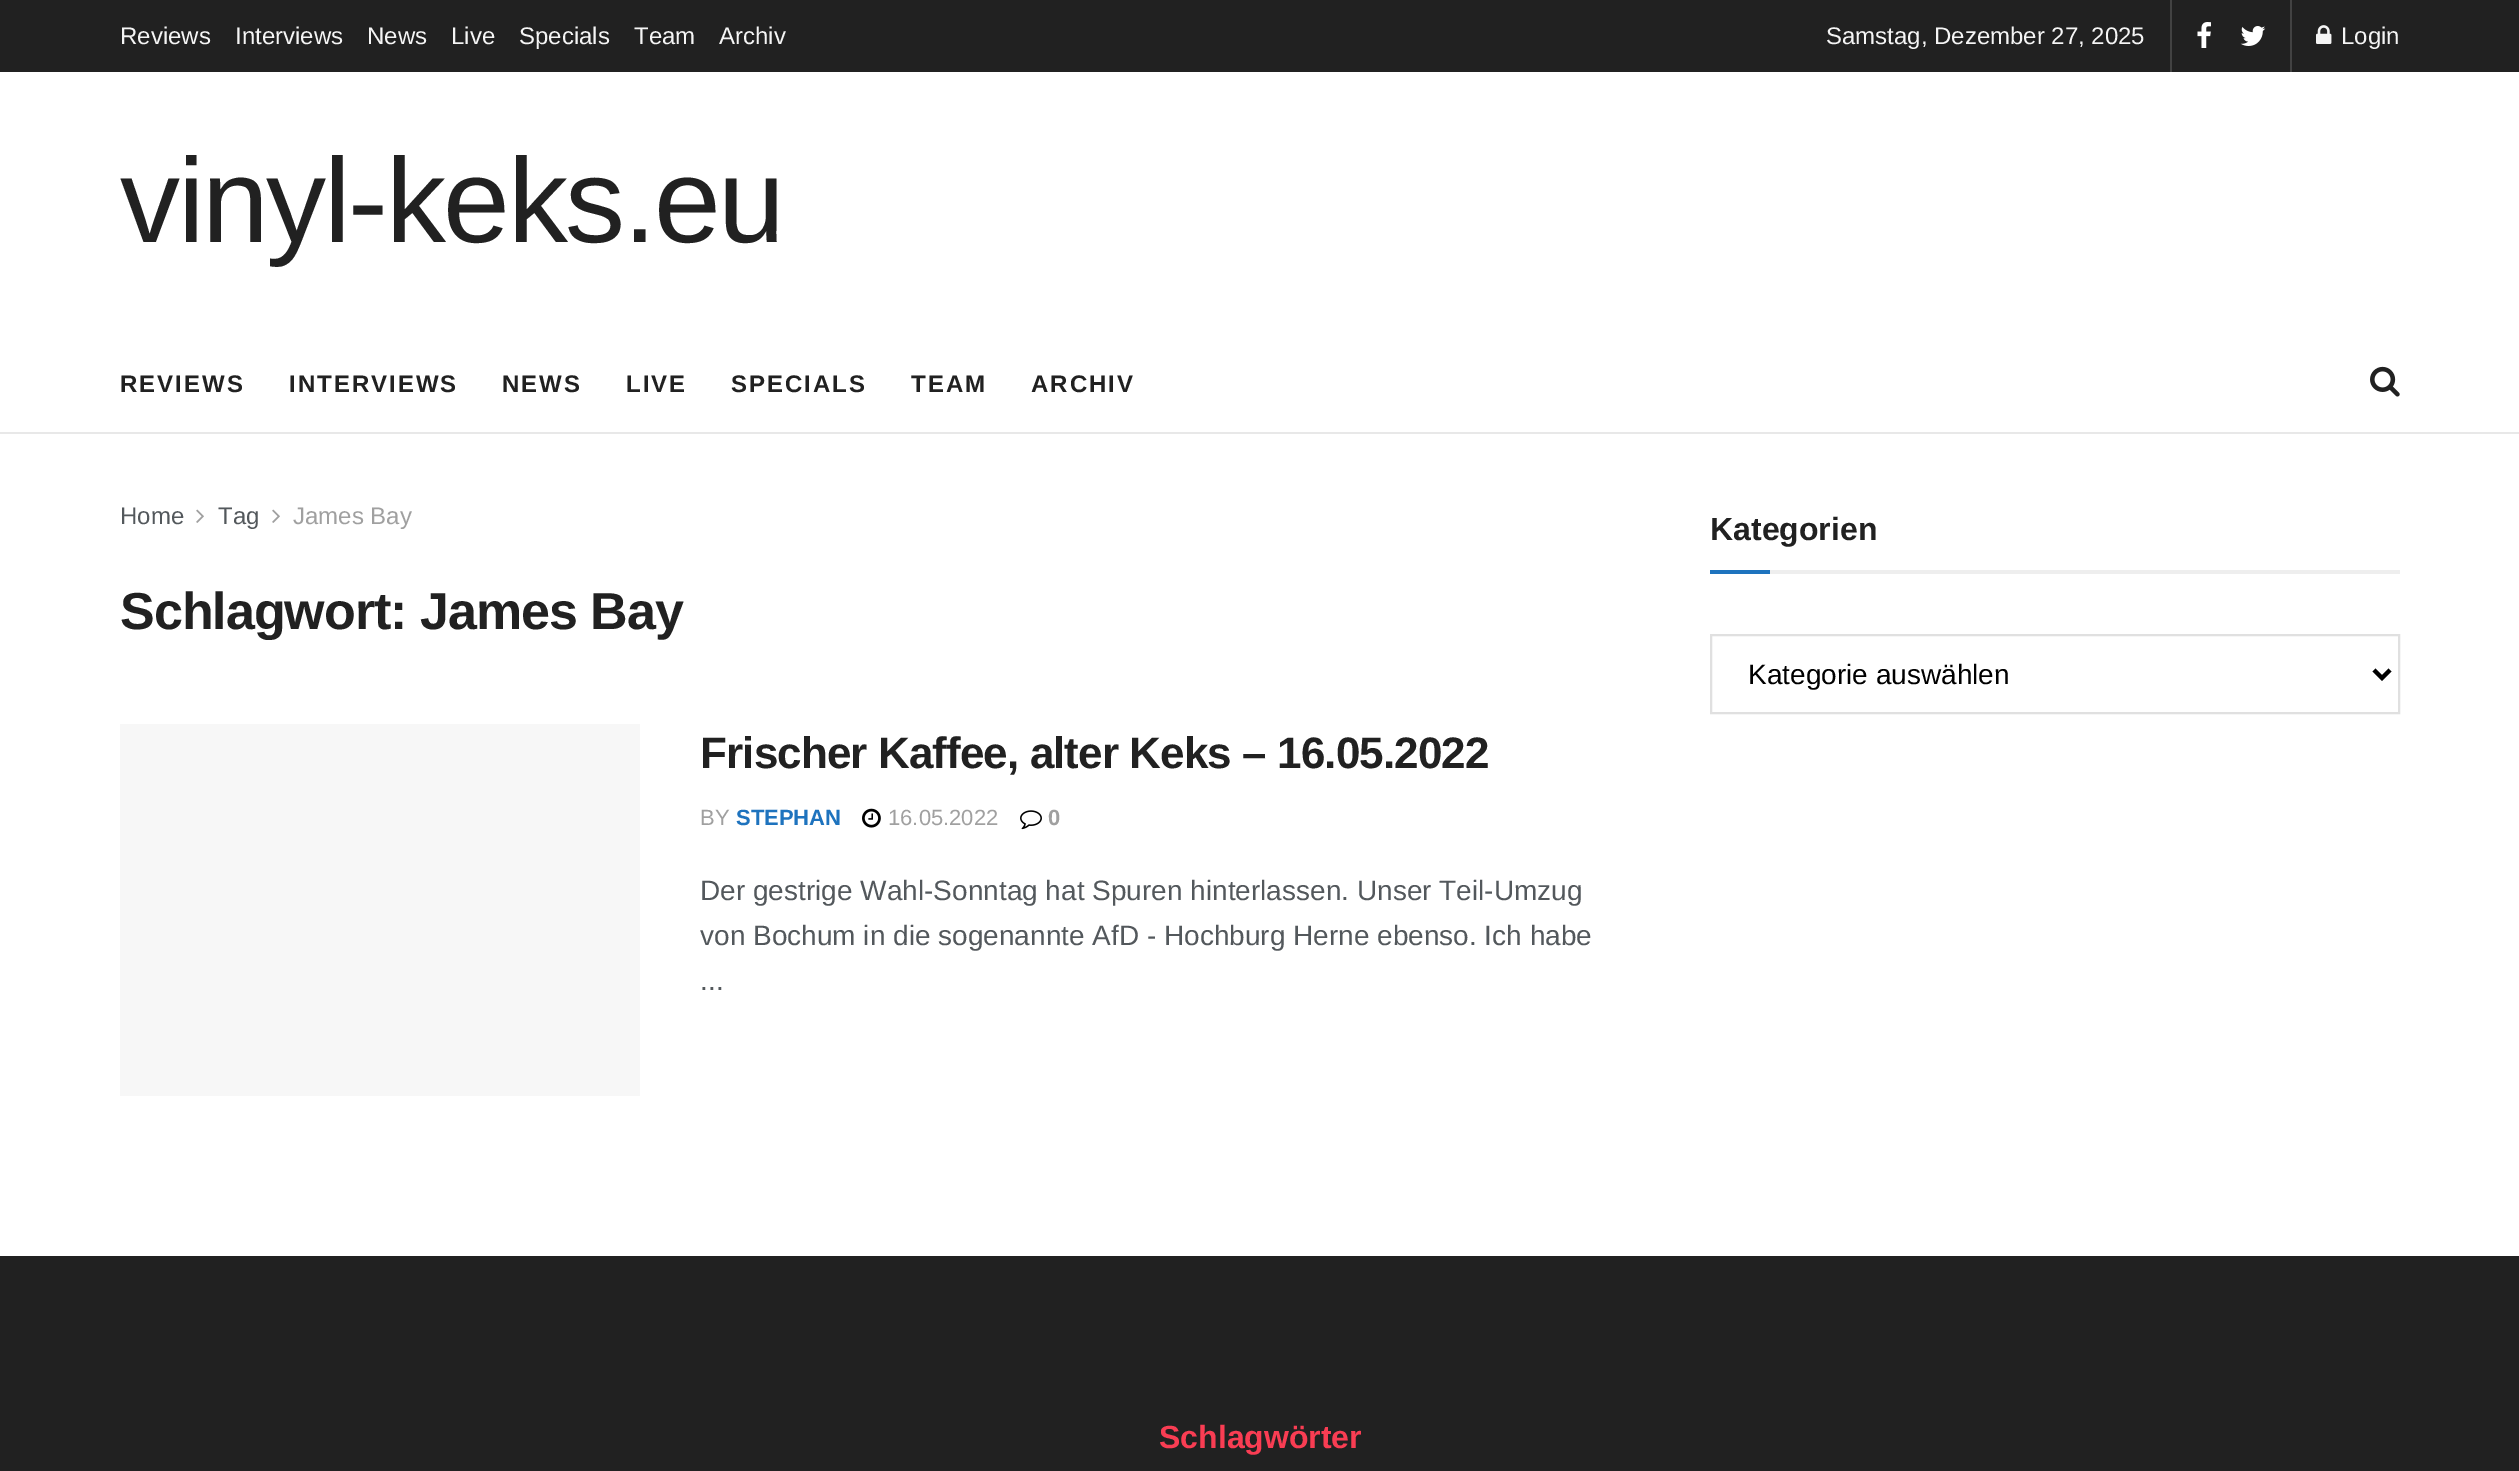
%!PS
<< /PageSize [2519 1471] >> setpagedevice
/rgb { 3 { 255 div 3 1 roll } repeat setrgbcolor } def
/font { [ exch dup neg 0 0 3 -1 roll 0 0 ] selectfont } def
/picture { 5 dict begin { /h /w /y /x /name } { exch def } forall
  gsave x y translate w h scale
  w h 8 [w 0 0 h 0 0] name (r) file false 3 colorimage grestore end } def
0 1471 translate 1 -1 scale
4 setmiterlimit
255 255 255 rgb
0 0 2519 1471 rectfill
[
  [0 0 2519 72 33 33 33]
  [2290 0 2 72 66 66 66]
  [2170 0 2 72 66 66 66]
] { aload pop rgb rectfill } forall
(img/1.rgb) 2197 22 14 26 picture
(img/2.rgb) 2240 26 26 20 picture
(img/3.rgb) 2316 25 16 19 picture
232 232 232 rgb
0 432 2519 2 rectfill
(img/4.rgb) 2370 366 30 31 picture
(img/5.rgb) 196 509 8 14 picture
(img/5.rgb) 272 509 8 14 picture
247 247 247 rgb
120 724 520 372 rectfill
(img/6.rgb) 862 808 19 20 picture
(img/7.rgb) 1020 810 22 20 picture
238 238 238 rgb
1770 570 630 4 rectfill
30 115 190 rgb
1710 570 60 4 rectfill
224 224 224 rgb
2 setlinewidth
1711 635 688 78 rectstroke
0 0 0 rgb
4 setlinewidth
2374 670 moveto 2382 678 lineto 2390 670 lineto stroke
33 33 33 rgb
0 1256 2519 215 rectfill
/LiberationSans-Regular 24 font
245 245 245 rgb
[
  [(Reviews) 120 44]
  [(Interviews) 235 44]
  [(News) 367 44]
  [(Live) 451 44]
  [(Specials) 519 44]
  [(Team) 634 44]
  [(Archiv) 719 44]
  [(Samstag, Dezember 27, 2025) 1826 44]
  [(Login) 2341 44]
] { aload pop moveto show } forall
/LiberationSans-Regular 120 font
33 33 33 rgb
120 242 moveto -2.4 0 (vinyl-keks.eu) ashow
/LiberationSans-Bold 24 font
120 392 moveto 2 0 (REVIEWS) ashow
289 392 moveto 2 0 (INTERVIEWS) ashow
502 392 moveto 2 0 (NEWS) ashow
626 392 moveto 2 0 (LIVE) ashow
731 392 moveto 2 0 (SPECIALS) ashow
911 392 moveto 2 0 (TEAM) ashow
1031 392 moveto 2 0 (ARCHIV) ashow
/LiberationSans-Regular 24 font
83 88 92 rgb
120 524 moveto (Home) show
218 524 moveto (Tag) show
160 160 160 rgb
293 524 moveto (James Bay) show
/LiberationSans-Bold 52 font
33 33 33 rgb
120 629 moveto -1 0 (Schlagwort: James Bay) ashow
/LiberationSans-Bold 44 font
700 768 moveto -0.9 0 (Frischer Kaffee, alter Keks – 16.05.2022) ashow
/LiberationSans-Regular 22 font
160 160 160 rgb
700 825 moveto (BY) show
/LiberationSans-Bold 22 font
30 115 190 rgb
736 825 moveto (STEPHAN) show
/LiberationSans-Regular 22 font
160 160 160 rgb
888 825 moveto (16.05.2022) show
/LiberationSans-Bold 22 font
1048 825 moveto (0) show
/LiberationSans-Regular 28 font
83 88 92 rgb
[
  [(Der gestrige Wahl-Sonntag hat Spuren hinterlassen. Unser Teil-Umzug) 700 900]
  [(von Bochum in die sogenannte AfD - Hochburg Herne ebenso. Ich habe) 700 945]
  [(...) 700 990]
] { aload pop moveto show } forall
/LiberationSans-Bold 32 font
33 33 33 rgb
1710 540 moveto (Kategorien) show
/LiberationSans-Regular 28 font
0 0 0 rgb
1748 684 moveto (Kategorie auswählen) show
/LiberationSans-Bold 32 font
249 61 83 rgb
1159 1448 moveto (Schlagwörter) show
showpage
